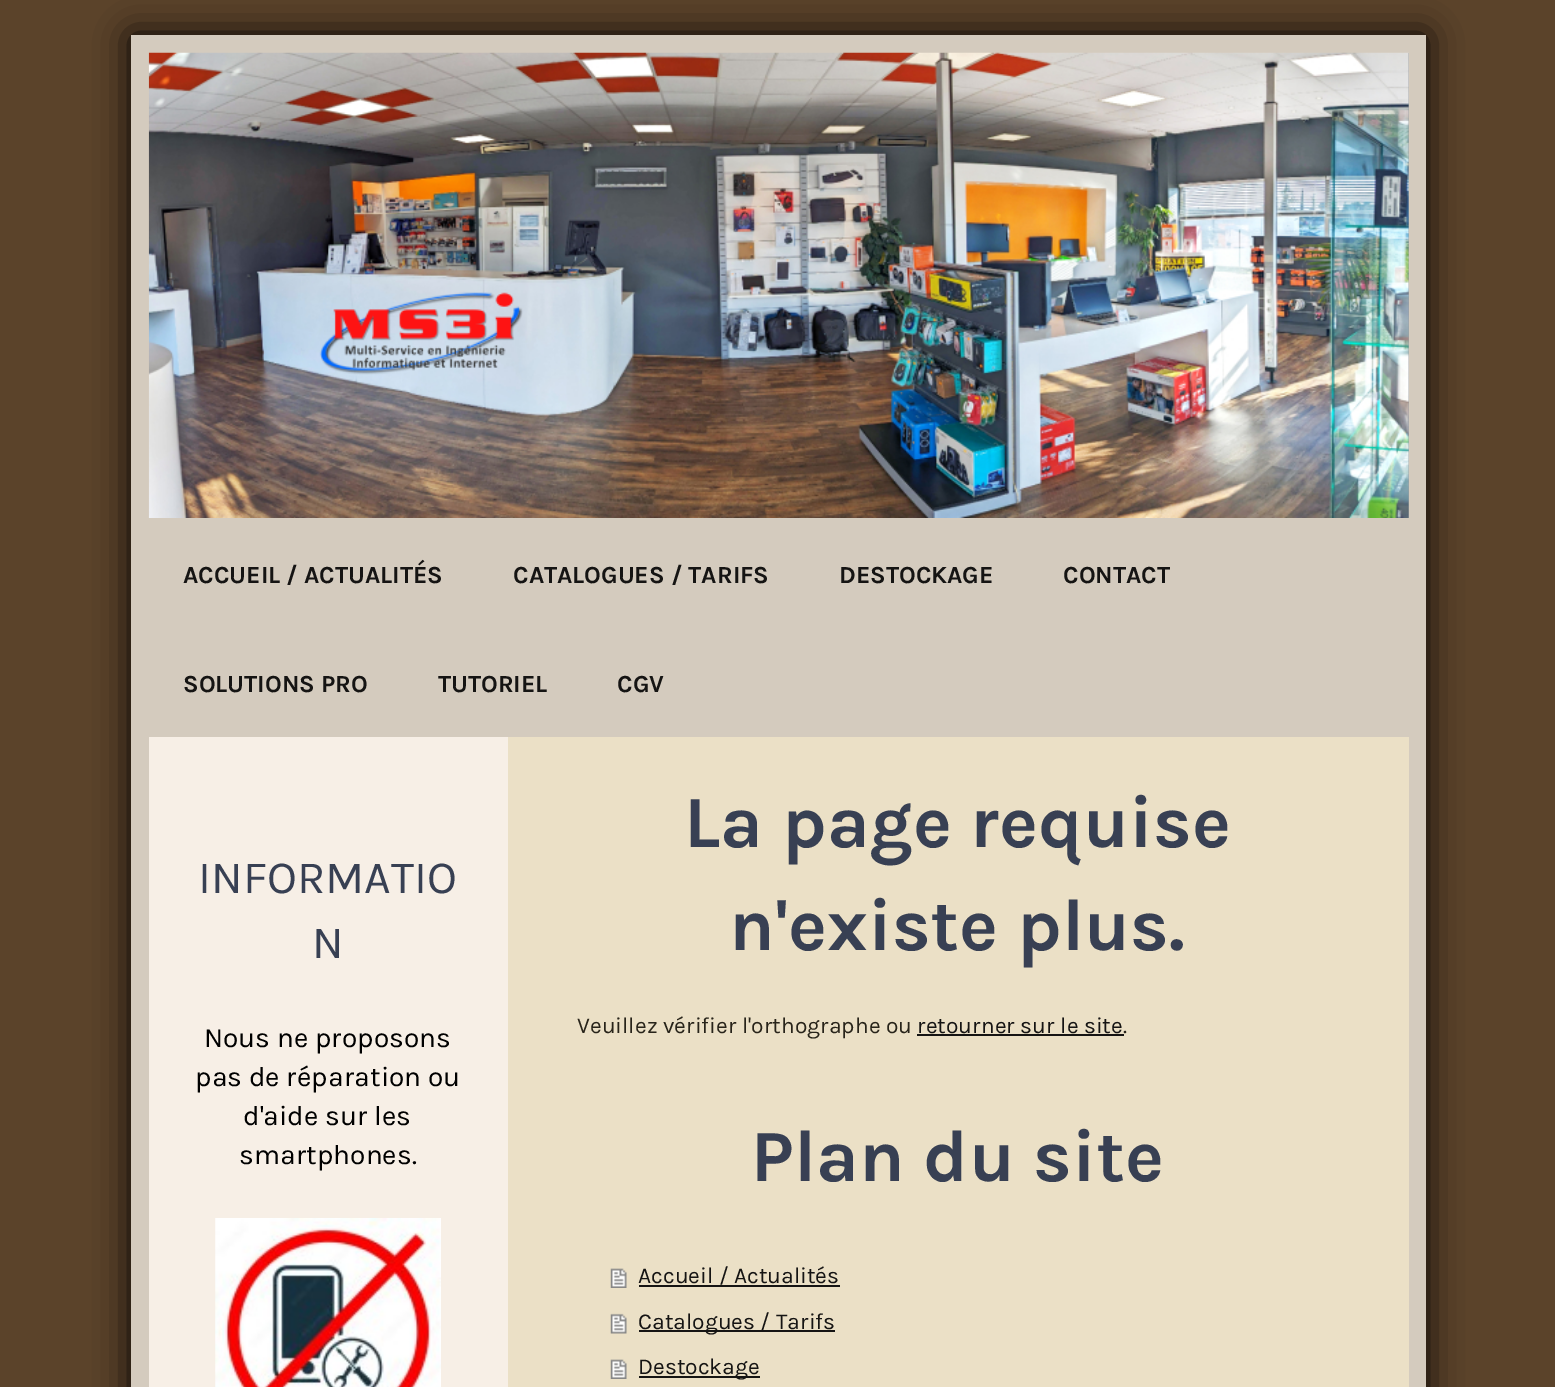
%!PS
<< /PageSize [1555 1387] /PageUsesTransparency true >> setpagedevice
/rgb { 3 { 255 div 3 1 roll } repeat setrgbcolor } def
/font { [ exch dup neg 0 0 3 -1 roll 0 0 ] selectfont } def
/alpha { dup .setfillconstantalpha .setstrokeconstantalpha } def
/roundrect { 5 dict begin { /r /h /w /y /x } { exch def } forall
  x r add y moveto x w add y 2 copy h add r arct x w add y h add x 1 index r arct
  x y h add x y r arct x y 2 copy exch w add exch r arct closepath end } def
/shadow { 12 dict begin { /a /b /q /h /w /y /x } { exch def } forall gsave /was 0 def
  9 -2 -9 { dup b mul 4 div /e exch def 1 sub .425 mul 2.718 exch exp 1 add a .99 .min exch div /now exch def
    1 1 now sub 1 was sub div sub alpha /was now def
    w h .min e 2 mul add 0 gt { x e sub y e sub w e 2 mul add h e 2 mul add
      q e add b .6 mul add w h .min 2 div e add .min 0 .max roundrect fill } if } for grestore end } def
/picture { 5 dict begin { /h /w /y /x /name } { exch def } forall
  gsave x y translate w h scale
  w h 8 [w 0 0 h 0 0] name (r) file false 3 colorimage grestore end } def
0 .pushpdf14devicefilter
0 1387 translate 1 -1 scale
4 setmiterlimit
91 67 42 rgb
0 0 1555 1387 rectfill
0 0 0 rgb
131 35 1295 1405 0 17.5 1 shadow
212 203 190 rgb
131 35 1295 1352 rectfill
160 160 160 rgb
1408 53 1 465 rectfill
(img/1.rgb) 148 52 1261 466 picture
(img/2.rgb) 319 292 204 83 picture
[
  [508 737 901 650 235 224 198]
  [149 737 359 650 247 239 230]
  [917 1034 207 2 21 20 19]
] { aload pop rgb rectfill } forall
(img/3.rgb) 610 1268 17 20 picture
639 1285 201 2 rectfill
(img/4.rgb) 610 1313 17 21 picture
639 1330 196 2 rectfill
(img/3.rgb) 610 1359 17 20 picture
639 1376 121 2 rectfill
(img/5.rgb) 215 1218 226 169 picture
/Karla-Bold 24.5 font
[
  [(ACCUEIL / ACTUALITÉS) 183 583]
  [(CATALOGUES / TARIFS) 513 583]
  [(DESTOCKAGE) 839 583]
  [(CONTACT) 1063 583]
  [(SOLUTIONS PRO) 183 692]
  [(TUTORIEL) 438 692]
  [(CGV) 617 692]
] { aload pop moveto show } forall
/Karla-Bold 73.5 font
56 64 83 rgb
684 847 moveto (La page requise) show
729 950 moveto (n'existe plus.) show
/Karla-Regular 22.75 font
40 36 26 rgb
577 1033 moveto (Veuillez vérifier l'orthographe ou) show
21 20 19 rgb
917 1033 moveto (retourner sur le site) show
40 36 26 rgb
1123 1033 moveto (.) show
/Karla-Bold 73.5 font
56 64 83 rgb
751 1181 moveto (Plan du site) show
/Karla-Regular 22.75 font
21 20 19 rgb
[
  [(Accueil / Actualités) 638 1283]
  [(Catalogues / Tarifs) 638 1329]
  [(Destockage) 638 1374]
] { aload pop moveto show } forall
/Karla-Regular 46.25 font
56 64 83 rgb
198 893 moveto (INFORMATIO) show
312 958 moveto (N) show
/Karla-Regular 28 font
0 0 0 rgb
[
  [(Nous ne proposons) 204 1047]
  [(pas de réparation ou) 195 1086]
  [(d'aide sur les) 243 1125]
  [(smartphones.) 239 1164]
] { aload pop moveto show } forall
.poppdf14devicefilter showpage
